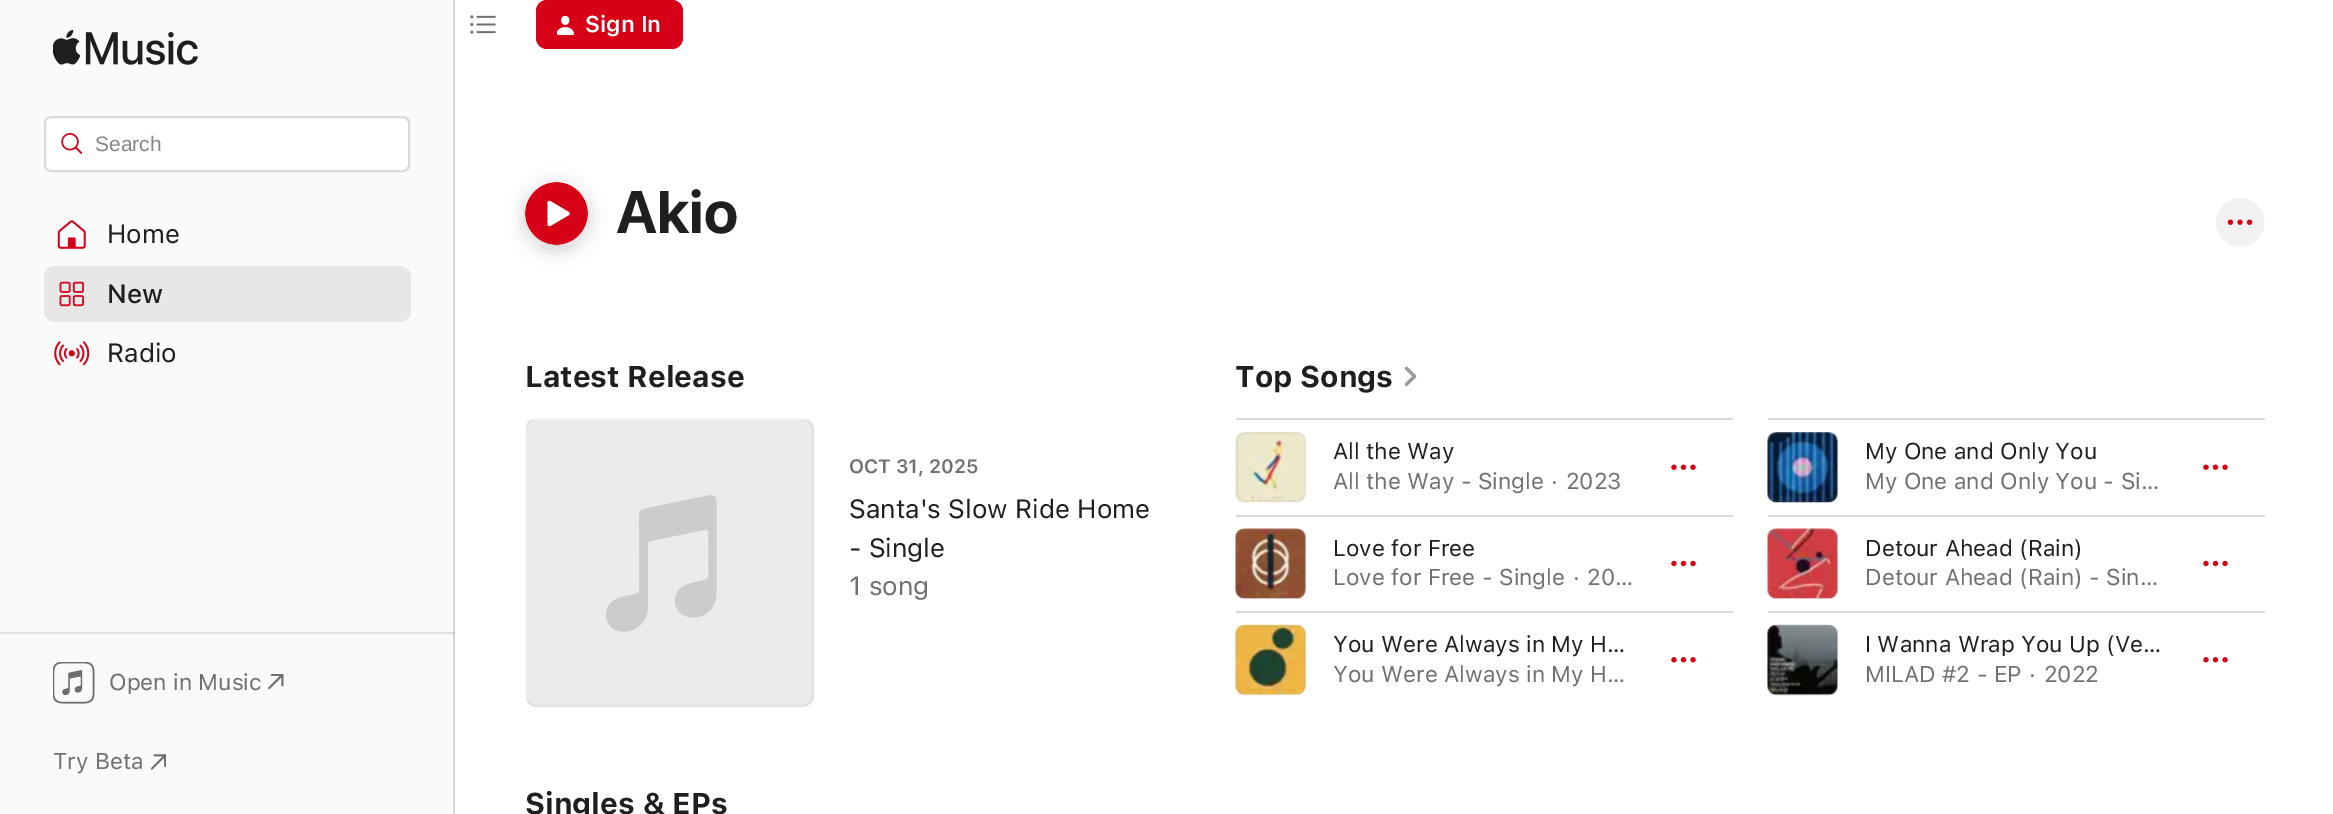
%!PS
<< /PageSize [2333 814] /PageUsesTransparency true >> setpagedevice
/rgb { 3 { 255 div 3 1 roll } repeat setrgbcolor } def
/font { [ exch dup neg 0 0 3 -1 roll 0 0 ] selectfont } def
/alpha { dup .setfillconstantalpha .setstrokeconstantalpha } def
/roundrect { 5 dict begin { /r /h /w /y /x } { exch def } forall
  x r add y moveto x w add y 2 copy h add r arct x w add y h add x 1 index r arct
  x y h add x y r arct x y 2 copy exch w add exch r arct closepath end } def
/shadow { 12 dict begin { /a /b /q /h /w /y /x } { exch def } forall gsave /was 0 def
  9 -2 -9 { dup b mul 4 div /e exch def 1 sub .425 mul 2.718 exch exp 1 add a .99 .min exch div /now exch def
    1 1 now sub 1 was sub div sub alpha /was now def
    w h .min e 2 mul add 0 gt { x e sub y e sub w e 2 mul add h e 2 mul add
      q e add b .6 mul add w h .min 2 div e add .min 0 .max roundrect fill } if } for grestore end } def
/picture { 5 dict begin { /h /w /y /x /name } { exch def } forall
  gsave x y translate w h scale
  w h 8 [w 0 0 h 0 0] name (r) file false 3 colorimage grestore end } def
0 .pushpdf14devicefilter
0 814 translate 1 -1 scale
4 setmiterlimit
255 255 255 rgb
0 0 2333 814 rectfill
(img/1.rgb) 470 15 26 19 picture
214 0 23 rgb
536 0 147 49 11 roundrect fill
(img/2.rgb) 557 16 17 19 picture
[
  [0 0 453 814 250 250 250]
  [0 632 455 2 225 225 225]
  [453 0 2 814 213 213 213]
  [453 632 2 2 192 192 192]
] { aload pop rgb rectfill } forall
(img/3.rgb) 53 30 145 35 picture
255 255 255 rgb
45 117 364 54 6 roundrect gsave fill grestore
217 217 217 rgb
2 setlinewidth
stroke
(img/4.rgb) 61 133 21 21 picture
(img/5.rgb) 57 220 29 29 picture
231 231 232 rgb
44 266 367 56 11 roundrect fill
(img/6.rgb) 59 281 25 26 picture
(img/7.rgb) 54 341 36 25 picture
(img/8.rgb) 53 662 42 42 picture
(img/9.rgb) 268 674 16 16 picture
(img/10.rgb) 151 754 15 16 picture
0 0 0 rgb
525 186 63 63 31.5 9 0.2 shadow
(img/11.rgb) 525 182 63 63 picture
(img/12.rgb) 2216 198 49 49 picture
(img/13.rgb) 527 420 287 287 picture
0.1 alpha
128 128 128 rgb
526 419 287 287 11 roundrect stroke
1 alpha
(img/14.rgb) 1404 366 13 20 picture
217 217 217 rgb
1236 418 497 2 rectfill
(img/15.rgb) 1235 432 71 71 picture
0.1 alpha
128 128 128 rgb
1237 433 68 68 8 roundrect stroke
1 alpha
(img/16.rgb) 1671 464 25 6 picture
217 217 217 rgb
1768 418 497 2 rectfill
(img/17.rgb) 1767 432 71 71 picture
0.1 alpha
128 128 128 rgb
1769 433 68 68 8 roundrect stroke
1 alpha
(img/16.rgb) 2203 464 25 6 picture
217 217 217 rgb
1236 515 497 2 rectfill
(img/18.rgb) 1235 528 71 71 picture
0.1 alpha
128 128 128 rgb
1237 530 68 68 8 roundrect stroke
1 alpha
(img/19.rgb) 1671 560 25 7 picture
217 217 217 rgb
1768 515 497 2 rectfill
(img/20.rgb) 1767 528 71 71 picture
0.1 alpha
128 128 128 rgb
1769 530 68 68 8 roundrect stroke
1 alpha
(img/19.rgb) 2203 560 25 7 picture
217 217 217 rgb
1236 611 497 2 rectfill
(img/21.rgb) 1235 624 71 72 picture
0.1 alpha
128 128 128 rgb
1237 626 68 68 8 roundrect stroke
1 alpha
(img/22.rgb) 1671 657 25 6 picture
217 217 217 rgb
1768 611 497 2 rectfill
(img/23.rgb) 1767 624 71 72 picture
0.1 alpha
128 128 128 rgb
1769 626 68 68 8 roundrect stroke
1 alpha
(img/22.rgb) 2203 657 25 6 picture
/SF-SemiBold 22.75 font
255 255 255 rgb
585 32 moveto (Sign In) show
/LiberationSans-Regular 21 font
133 133 133 rgb
95 151 moveto (Search) show
/SF-Regular 26.25 font
31 31 31 rgb
107 243 moveto (Home) show
/SF-Medium 26.25 font
107 303 moveto (New) show
/SF-Regular 26.25 font
107 362 moveto (Radio) show
/SF-Regular 22.75 font
112 112 112 rgb
109 690 moveto (Open in Music) show
53 769 moveto (Try Beta) show
/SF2-Bold 59.5 font
31 31 31 rgb
616 233 moveto (Akio) show
/SF-Bold 29.75 font
525 387 moveto (Latest Release) show
/SF-SemiBold 19.25 font
112 112 112 rgb
849 473 moveto (OCT 31, 2025) show
/SF-Regular 26.25 font
31 31 31 rgb
849 518 moveto (Santa's Slow Ride Home) show
849 557 moveto (- Single) show
112 112 112 rgb
849 595 moveto (1 song) show
/SF-Bold 29.75 font
31 31 31 rgb
1235 387 moveto (Top Songs) show
/SF-Regular 22.75 font
1333 459 moveto (All the Way) show
112 112 112 rgb
1333 489 moveto (All the Way - Single · 2023) show
31 31 31 rgb
1865 459 moveto (My One and Only You) show
112 112 112 rgb
1865 489 moveto (My One and Only You - Si…) show
31 31 31 rgb
1333 556 moveto (Love for Free) show
112 112 112 rgb
1333 585 moveto (Love for Free - Single · 20…) show
31 31 31 rgb
1865 556 moveto (Detour Ahead \(Rain\)) show
112 112 112 rgb
1865 585 moveto (Detour Ahead \(Rain\) - Sin…) show
31 31 31 rgb
1333 652 moveto (You Were Always in My H…) show
112 112 112 rgb
1333 682 moveto (You Were Always in My H…) show
31 31 31 rgb
1865 652 moveto (I Wanna Wrap You Up \(Ve…) show
112 112 112 rgb
1865 682 moveto (MILAD #2 - EP · 2022) show
/SF-Bold 29.75 font
31 31 31 rgb
525 814 moveto (Singles & EPs) show
.poppdf14devicefilter showpage
